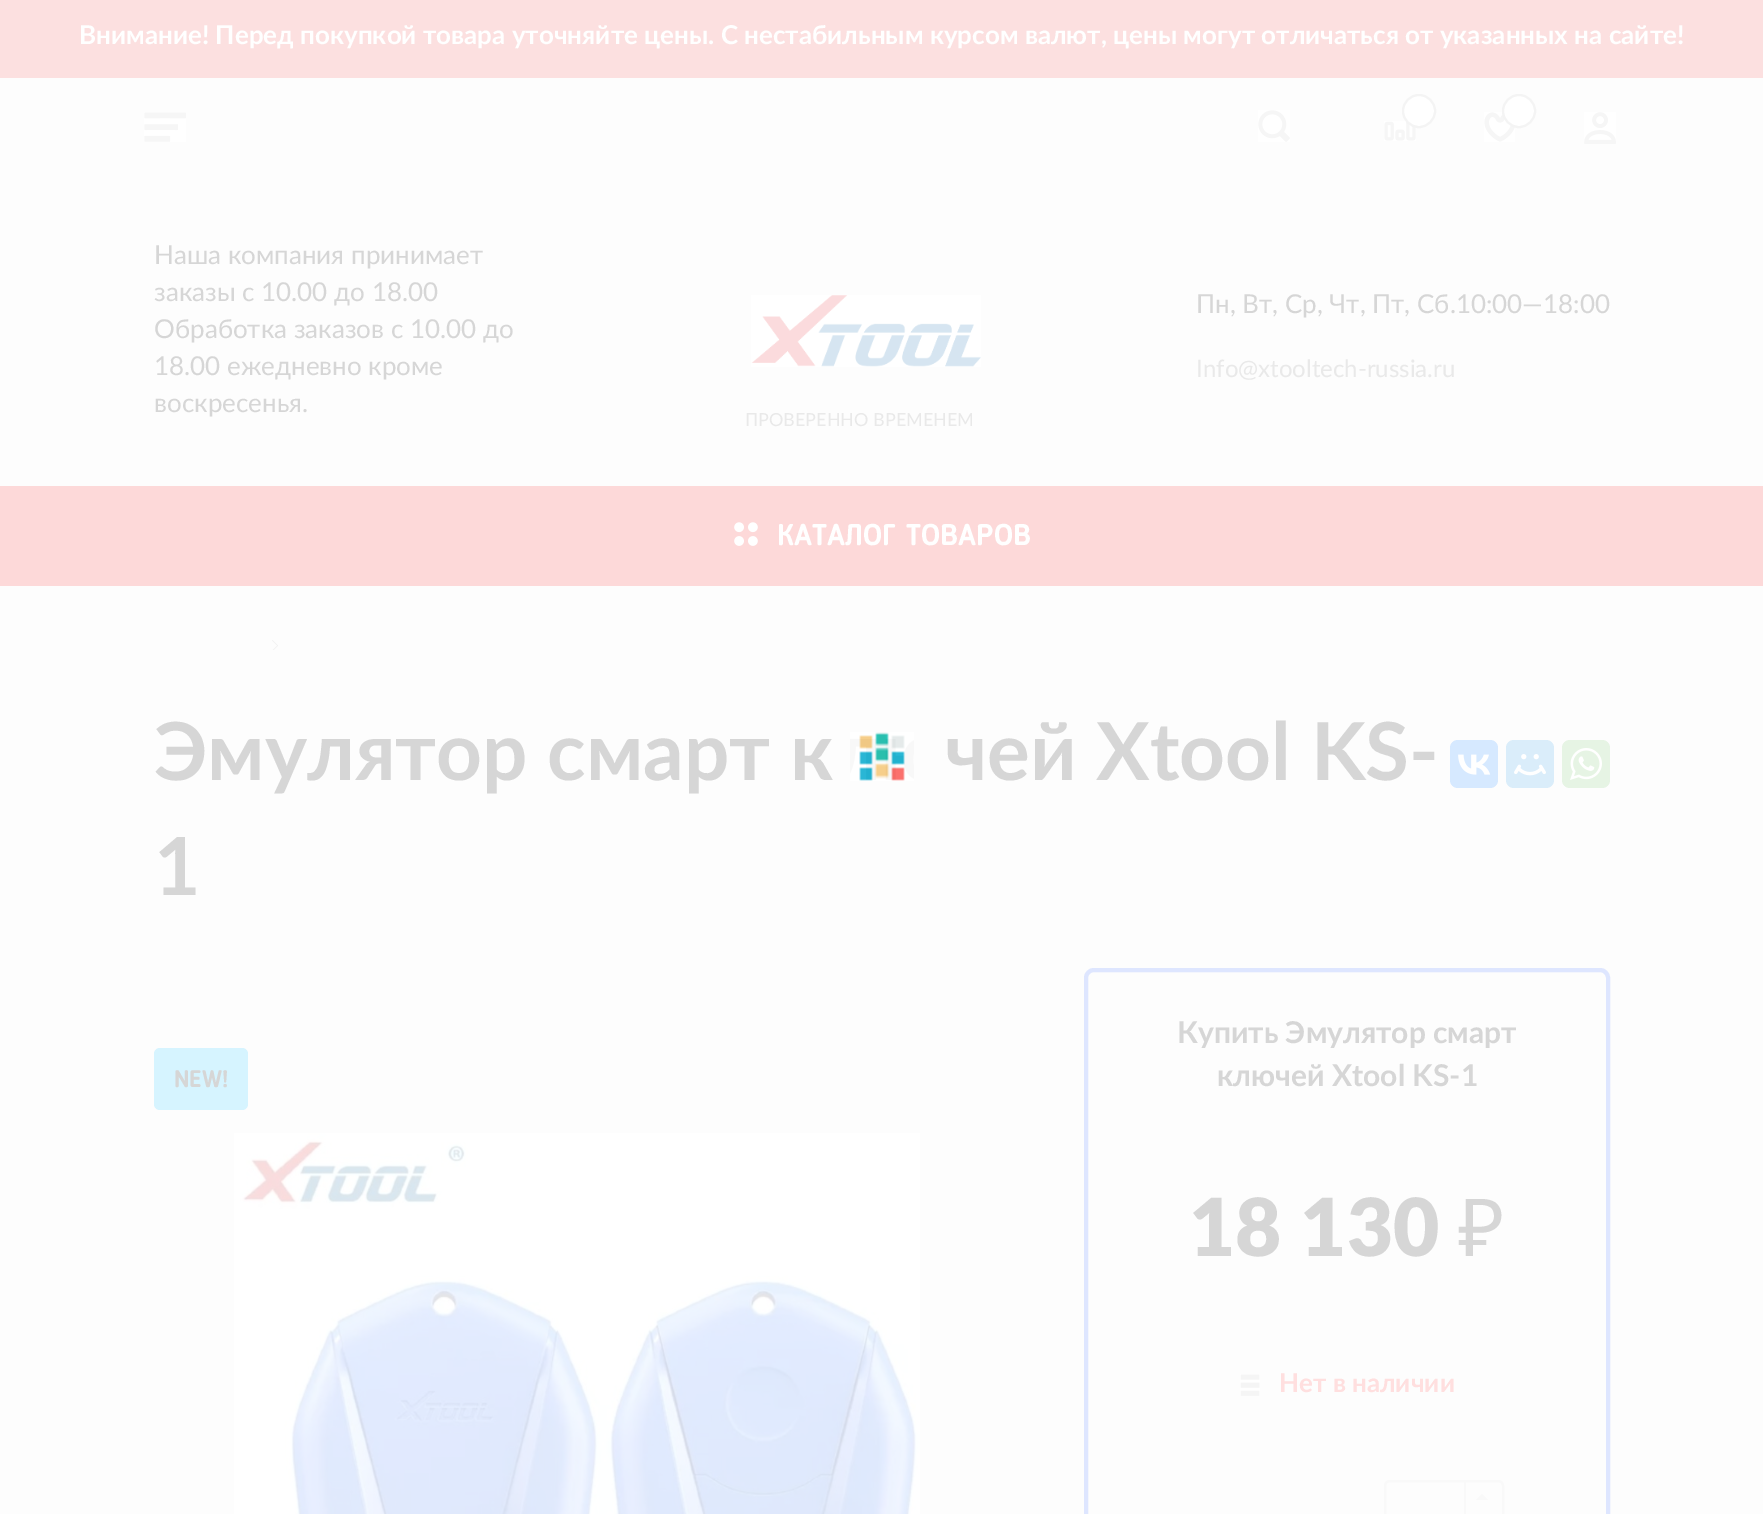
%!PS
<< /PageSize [1763 1514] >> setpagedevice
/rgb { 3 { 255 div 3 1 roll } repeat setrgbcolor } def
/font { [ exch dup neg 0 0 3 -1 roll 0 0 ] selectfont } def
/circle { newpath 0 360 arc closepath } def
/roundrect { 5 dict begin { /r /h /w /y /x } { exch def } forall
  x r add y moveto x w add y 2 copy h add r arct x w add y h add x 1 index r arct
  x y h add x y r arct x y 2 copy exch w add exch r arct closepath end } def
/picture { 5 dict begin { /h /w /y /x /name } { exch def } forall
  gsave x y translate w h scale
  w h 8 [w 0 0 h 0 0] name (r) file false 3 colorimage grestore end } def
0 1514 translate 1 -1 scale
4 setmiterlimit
253 253 253 rgb
0 0 1763 1514 rectfill
252 224 224 rgb
0 0 1763 78 rectfill
(img/1.rgb) 144 112 42 30 picture
(img/2.rgb) 1258 110 32 32 picture
(img/3.rgb) 1384 121 32 20 picture
255 255 255 rgb
1419 111 16 circle gsave fill grestore
244 244 244 rgb
2 setlinewidth
stroke
(img/4.rgb) 1484 112 31 30 picture
255 255 255 rgb
1519 111 16 circle gsave fill grestore
244 244 244 rgb
stroke
(img/5.rgb) 1584 112 32 32 picture
(img/6.rgb) 751 295 230 72 picture
253 217 217 rgb
0 486 1763 100 rectfill
(img/7.rgb) 734 522 24 24 picture
(img/8.rgb) 272 640 6 10 picture
214 233 255 rgb
1450 740 48 48 8 roundrect fill
(img/9.rgb) 1458 754 33 21 picture
218 237 250 rgb
1506 740 48 48 8 roundrect fill
(img/10.rgb) 1514 754 32 22 picture
230 244 228 rgb
1562 740 48 48 8 roundrect fill
(img/11.rgb) 1570 748 32 32 picture
214 244 255 rgb
154 1048 94 62 6 roundrect fill
(img/12.rgb) 234 1133 686 381 picture
222 230 255 rgb
4 setlinewidth
1086 970 522 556 8 roundrect stroke
(img/13.rgb) 1240 1374 20 22 picture
249 249 249 rgb
2 setlinewidth
1385 1481 118 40 5 roundrect stroke
1464 1480 2 34 rectfill
1488 1500 moveto 1476 1500 lineto 1482 1494 lineto closepath fill
(img/14.rgb) 850 732 64 49 picture
/Lato-Bold 26 font
255 255 255 rgb
79 44 moveto (Внимание! Перед покупкой товара уточняйте цены. С нестабильным курсом валют, цены могут отличаться от указанных на сайте!) show
/Lato-Regular 26 font
214 214 214 rgb
[
  [(Наша компания принимает) 154 264]
  [(заказы с 10.00 до 18.00) 154 301]
  [(Обработка заказов с 10.00 до) 154 338]
  [(18.00 ежедневно кроме) 154 375]
  [(воскресенья.) 154 412]
  [(Пн, Вт, Ср, Чт, Пт, Сб.10:00—18:00) 1196 313]
] { aload pop moveto show } forall
/Lato-Regular 24 font
233 233 233 rgb
1196 377 moveto (Info@xtooltech-russia.ru) show
/Lato-Regular 18 font
745 426 moveto (ПРОВЕРЕННО ВРЕМЕНЕМ) show
/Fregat-Bold 30 font
255 255 255 rgb
777 545 moveto (КАТАЛОГ ТОВАРОВ) show
/Lato-Bold 80 font
214 214 214 rgb
[
  [(Эмулятор смарт к) 154 780]
  [(чей Xtool KS-) 945 780]
  [(1) 154 895]
] { aload pop moveto show } forall
/Fregat-Bold 24 font
174 1087 moveto (NEW!) show
/Lato-Bold 30 font
1177 1043 moveto (Купить Эмулятор смарт) show
1217 1086 moveto (ключей Xtool KS-1) show
/Lato-Black 80 font
1189 1256 moveto (18 130) show
/NotoSans-Regular 80 font
1458 1256 moveto (₽) show
/Lato-Bold 26 font
255 223 223 rgb
1279 1392 moveto (Нет в наличии) show
showpage
